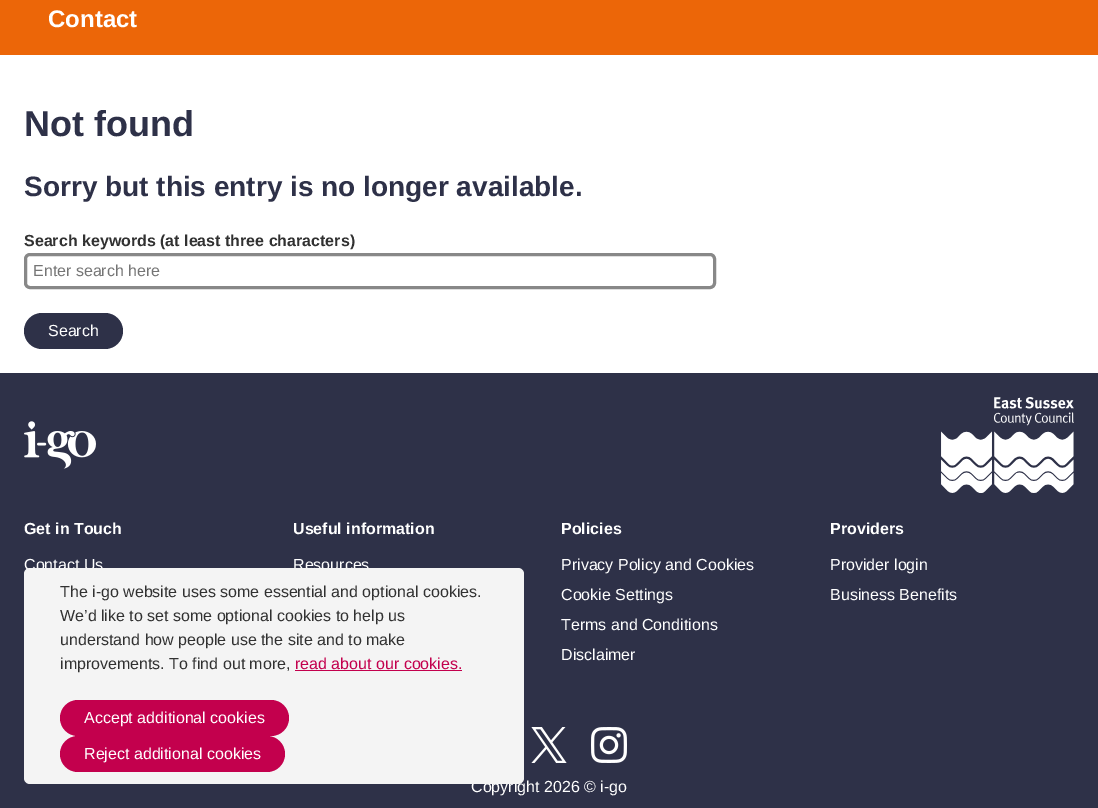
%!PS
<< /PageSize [1098 808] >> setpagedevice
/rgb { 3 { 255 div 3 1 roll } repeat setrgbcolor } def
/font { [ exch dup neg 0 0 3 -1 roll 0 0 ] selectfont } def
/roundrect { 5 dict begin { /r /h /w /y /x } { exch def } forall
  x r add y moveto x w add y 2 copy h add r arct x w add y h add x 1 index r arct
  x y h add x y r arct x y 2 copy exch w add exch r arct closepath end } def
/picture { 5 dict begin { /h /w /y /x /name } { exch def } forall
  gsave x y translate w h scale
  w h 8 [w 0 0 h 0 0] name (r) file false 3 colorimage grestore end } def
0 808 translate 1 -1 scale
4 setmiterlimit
255 255 255 rgb
0 0 1098 808 rectfill
236 102 8 rgb
0 0 1098 55 rectfill
136 136 136 rgb
3 setlinewidth
25.5 254.5 689 33 4.5 roundrect stroke
46 49 72 rgb
24 313 99 36 18 roundrect fill
0 373 1098 435 rectfill
(img/1.rgb) 24 421 72 48 picture
(img/2.rgb) 941 397 133 96 picture
(img/3.rgb) 531 727 36 36 picture
(img/4.rgb) 591 727 36 36 picture
/LiberationSans-Bold 24 font
255 255 255 rgb
48 27 moveto (Contact) show
/LiberationSans-Bold 36 font
46 49 72 rgb
24 136 moveto (Not found) show
/LiberationSans-Bold 28 font
24 196 moveto (Sorry but this entry is no longer available.) show
/LiberationSans-Bold 16 font
49 49 49 rgb
24 246 moveto (Search keywords \(at least three characters\)) show
/LiberationSans-Regular 16 font
117 117 117 rgb
33 276 moveto (Enter search here) show
255 255 255 rgb
48 336 moveto (Search) show
/LiberationSans-Bold 16 font
24 534 moveto (Get in Touch) show
/LiberationSans-Regular 16 font
24 570 moveto (Contact Us) show
/LiberationSans-Bold 16 font
293 534 moveto (Useful information) show
/LiberationSans-Regular 16 font
293 570 moveto (Resources) show
/LiberationSans-Bold 16 font
561 534 moveto (Policies) show
/LiberationSans-Regular 16 font
[
  [(Privacy Policy and Cookies) 561 570]
  [(Cookie Settings) 561 600]
  [(Terms and Conditions) 561 630]
  [(Disclaimer) 561 660]
] { aload pop moveto show } forall
/LiberationSans-Bold 16 font
830 534 moveto (Providers) show
/LiberationSans-Regular 16 font
[
  [(Provider login) 830 570]
  [(Business Benefits) 830 600]
  [(Copyright 2026 © i-go) 471 792]
] { aload pop moveto show } forall
244 244 244 rgb
24 568 500 216 6 roundrect fill
49 49 49 rgb
[
  [(The i-go website uses some essential and optional cookies.) 60 597]
  [(We’d like to set some optional cookies to help us) 60 621]
  [(understand how people use the site and to make) 60 645]
  [(improvements. To find out more,) 60 669]
] { aload pop moveto show } forall
195 0 77 rgb
295 669 moveto (read about our cookies.) show
295 670 167 1 rectfill
60 700 229 36 18 roundrect fill
255 255 255 rgb
84 723 moveto (Accept additional cookies) show
195 0 77 rgb
60 736 225 36 18 roundrect fill
255 255 255 rgb
84 759 moveto (Reject additional cookies) show
showpage
